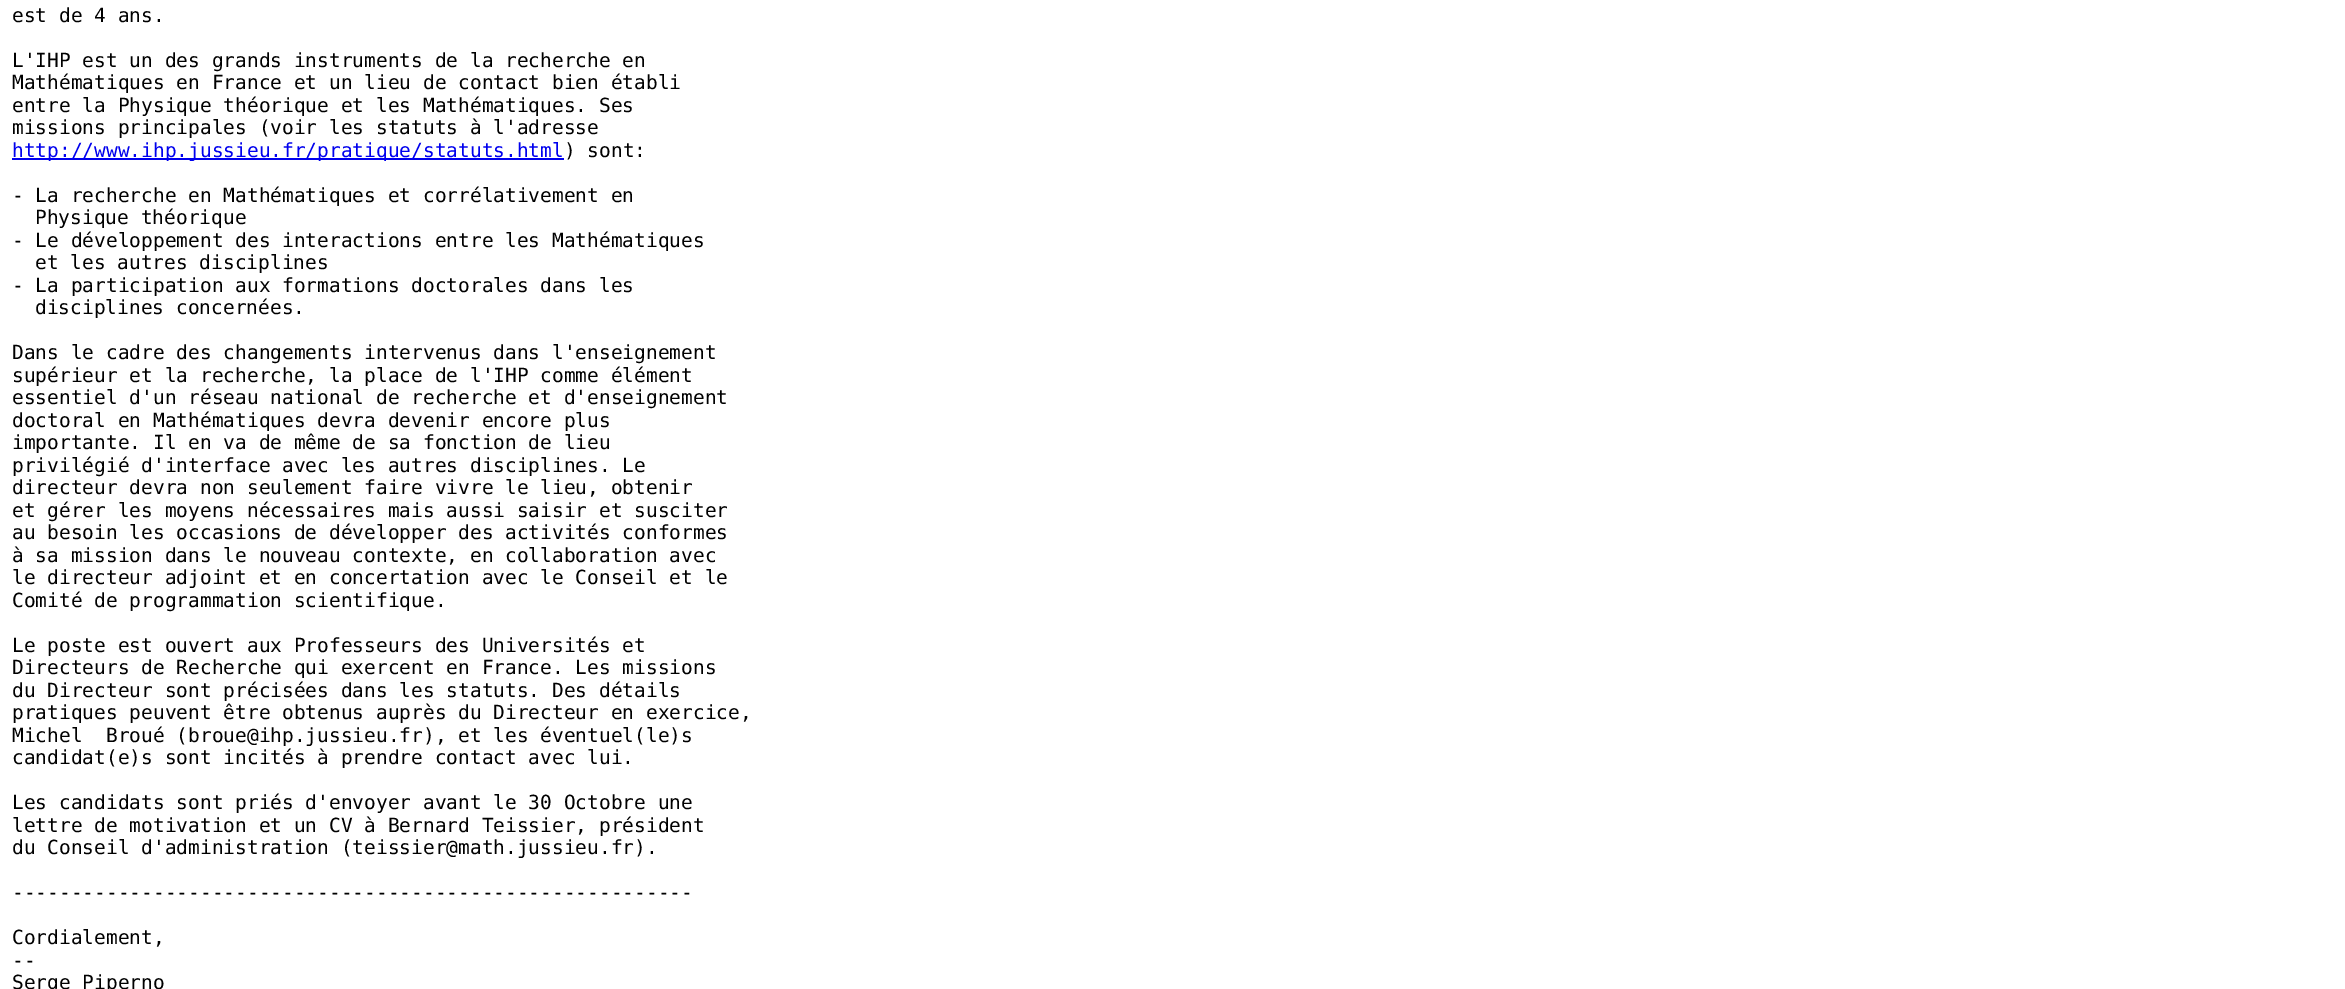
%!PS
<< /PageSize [2345 989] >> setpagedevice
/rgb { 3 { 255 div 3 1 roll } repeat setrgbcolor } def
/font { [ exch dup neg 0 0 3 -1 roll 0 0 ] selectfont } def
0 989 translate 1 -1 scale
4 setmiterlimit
255 255 255 rgb
0 0 2345 989 rectfill
0 0 238 rgb
12 158 552 2 rectfill
/DejaVuSansMono-Regular 19.5 font
0 0 0 rgb
[
  [(est de 4 ans.) 12 22]
  [(L'IHP est un des grands instruments de la recherche en) 12 67]
  [(Mathématiques en France et un lieu de contact bien établi) 12 89]
  [(entre la Physique théorique et les Mathématiques. Ses) 12 112]
  [(missions principales \(voir les statuts à l'adresse) 12 134]
] { aload pop moveto show } forall
0 0 238 rgb
12 157 moveto (http://www.ihp.jussieu.fr/pratique/statuts.html) show
0 0 0 rgb
[
  [(\) sont:) 564 157]
  [(- La recherche en Mathématiques et corrélativement en) 12 202]
  [(Physique théorique) 35 224]
  [(- Le développement des interactions entre les Mathématiques) 12 247]
  [(et les autres disciplines) 35 269]
  [(- La participation aux formations doctorales dans les) 12 292]
  [(disciplines concernées.) 35 314]
  [(Dans le cadre des changements intervenus dans l'enseignement) 12 359]
  [(supérieur et la recherche, la place de l'IHP comme élément) 12 382]
  [(essentiel d'un réseau national de recherche et d'enseignement) 12 404]
  [(doctoral en Mathématiques devra devenir encore plus) 12 427]
  [(importante. Il en va de même de sa fonction de lieu) 12 449]
  [(privilégié d'interface avec les autres disciplines. Le) 12 472]
  [(directeur devra non seulement faire vivre le lieu, obtenir) 12 494]
  [(et gérer les moyens nécessaires mais aussi saisir et susciter) 12 517]
  [(au besoin les occasions de développer des activités conformes) 12 539]
  [(à sa mission dans le nouveau contexte, en collaboration avec) 12 562]
  [(le directeur adjoint et en concertation avec le Conseil et le) 12 584]
  [(Comité de programmation scientifique.) 12 607]
  [(Le poste est ouvert aux Professeurs des Universités et) 12 652]
  [(Directeurs de Recherche qui exercent en France. Les missions) 12 674]
  [(du Directeur sont précisées dans les statuts. Des détails) 12 697]
  [(pratiques peuvent être obtenus auprès du Directeur en exercice,) 12 719]
  [(Michel  Broué \(broue@ihp.jussieu.fr\), et les éventuel\(le\)s) 12 742]
  [(candidat\(e\)s sont incités à prendre contact avec lui.) 12 764]
  [(Les candidats sont priés d'envoyer avant le 30 Octobre une) 12 809]
  [(lettre de motivation et un CV à Bernard Teissier, président) 12 832]
  [(du Conseil d'administration \(teissier@math.jussieu.fr\).) 12 854]
  [(----------------------------------------------------------) 12 899]
  [(Cordialement,) 12 944]
  [(--) 12 967]
  [(Serge Piperno) 12 989]
] { aload pop moveto show } forall
showpage
